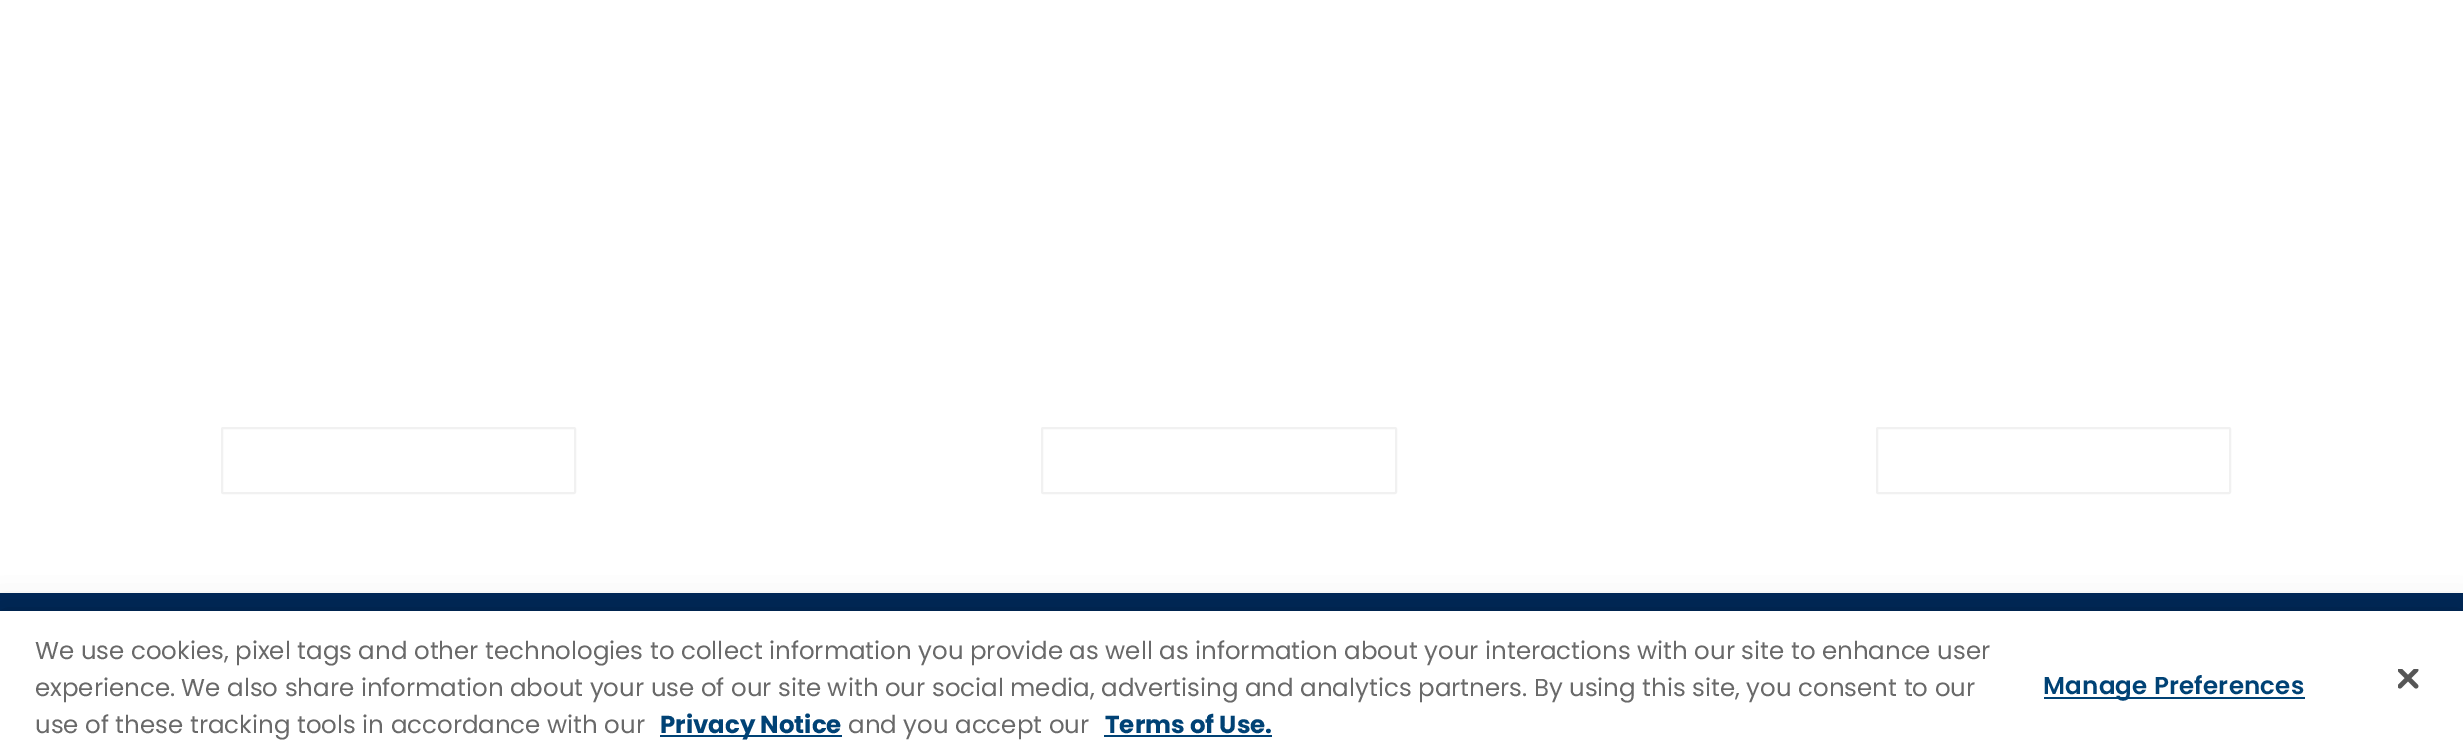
%!PS
<< /PageSize [2463 753] /PageUsesTransparency true >> setpagedevice
/rgb { 3 { 255 div 3 1 roll } repeat setrgbcolor } def
/font { [ exch dup neg 0 0 3 -1 roll 0 0 ] selectfont } def
/alpha { dup .setfillconstantalpha .setstrokeconstantalpha } def
/roundrect { 5 dict begin { /r /h /w /y /x } { exch def } forall
  x r add y moveto x w add y 2 copy h add r arct x w add y h add x 1 index r arct
  x y h add x y r arct x y 2 copy exch w add exch r arct closepath end } def
/shadow { 12 dict begin { /a /b /q /h /w /y /x } { exch def } forall gsave /was 0 def
  9 -2 -9 { dup b mul 4 div /e exch def 1 sub .425 mul 2.718 exch exp 1 add a .99 .min exch div /now exch def
    1 1 now sub 1 was sub div sub alpha /was now def
    w h .min e 2 mul add 0 gt { x e sub y e sub w e 2 mul add h e 2 mul add
      q e add b .6 mul add w h .min 2 div e add .min 0 .max roundrect fill } if } for grestore end } def
/picture { 5 dict begin { /h /w /y /x /name } { exch def } forall
  gsave x y translate w h scale
  w h 8 [w 0 0 h 0 0] name (r) file false 3 colorimage grestore end } def
0 .pushpdf14devicefilter
0 753 translate 1 -1 scale
4 setmiterlimit
255 255 255 rgb
0 0 2463 753 rectfill
241 241 241 rgb
2 setlinewidth
222 428 353 65 1 roundrect stroke
1042 428 354 65 1 roundrect stroke
1877 428 353 65 1 roundrect stroke
0 40 89 rgb
0 593 2463 18 rectfill
0 0 0 rgb
0 611 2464 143 0 16 0.2 shadow
[
  [0 611 2463 142 255 255 255]
  [660 735 182 2 0 66 117]
  [1104 735 168 2 0 66 117]
  [2044 697 261 2 0 66 117]
] { aload pop rgb rectfill } forall
(img/1.rgb) 2398 669 21 20 picture
/Poppins-Regular 24.5 font
105 105 105 rgb
[
  [(We use cookies, pixel tags and other technologies to collect information you provide as well as information about your interactions with our site to enhance user) 35 659]
  [(experience. We also share information about your use of our site with our social media, advertising and analytics partners. By using this site, you consent to our) 35 696]
  [(use of these tracking tools in accordance with our) 35 733]
] { aload pop moveto show } forall
/Poppins-Bold 24.5 font
0 66 117 rgb
660 733 moveto (Privacy Notice) show
/Poppins-Regular 24.5 font
105 105 105 rgb
848 733 moveto (and you accept our) show
/Poppins-Bold 24.5 font
0 66 117 rgb
1105 733 moveto (Terms of Use.) show
/Poppins-SemiBold 24.5 font
2043 694 moveto 0.25 0 (Manage Preferences) ashow
.poppdf14devicefilter showpage
